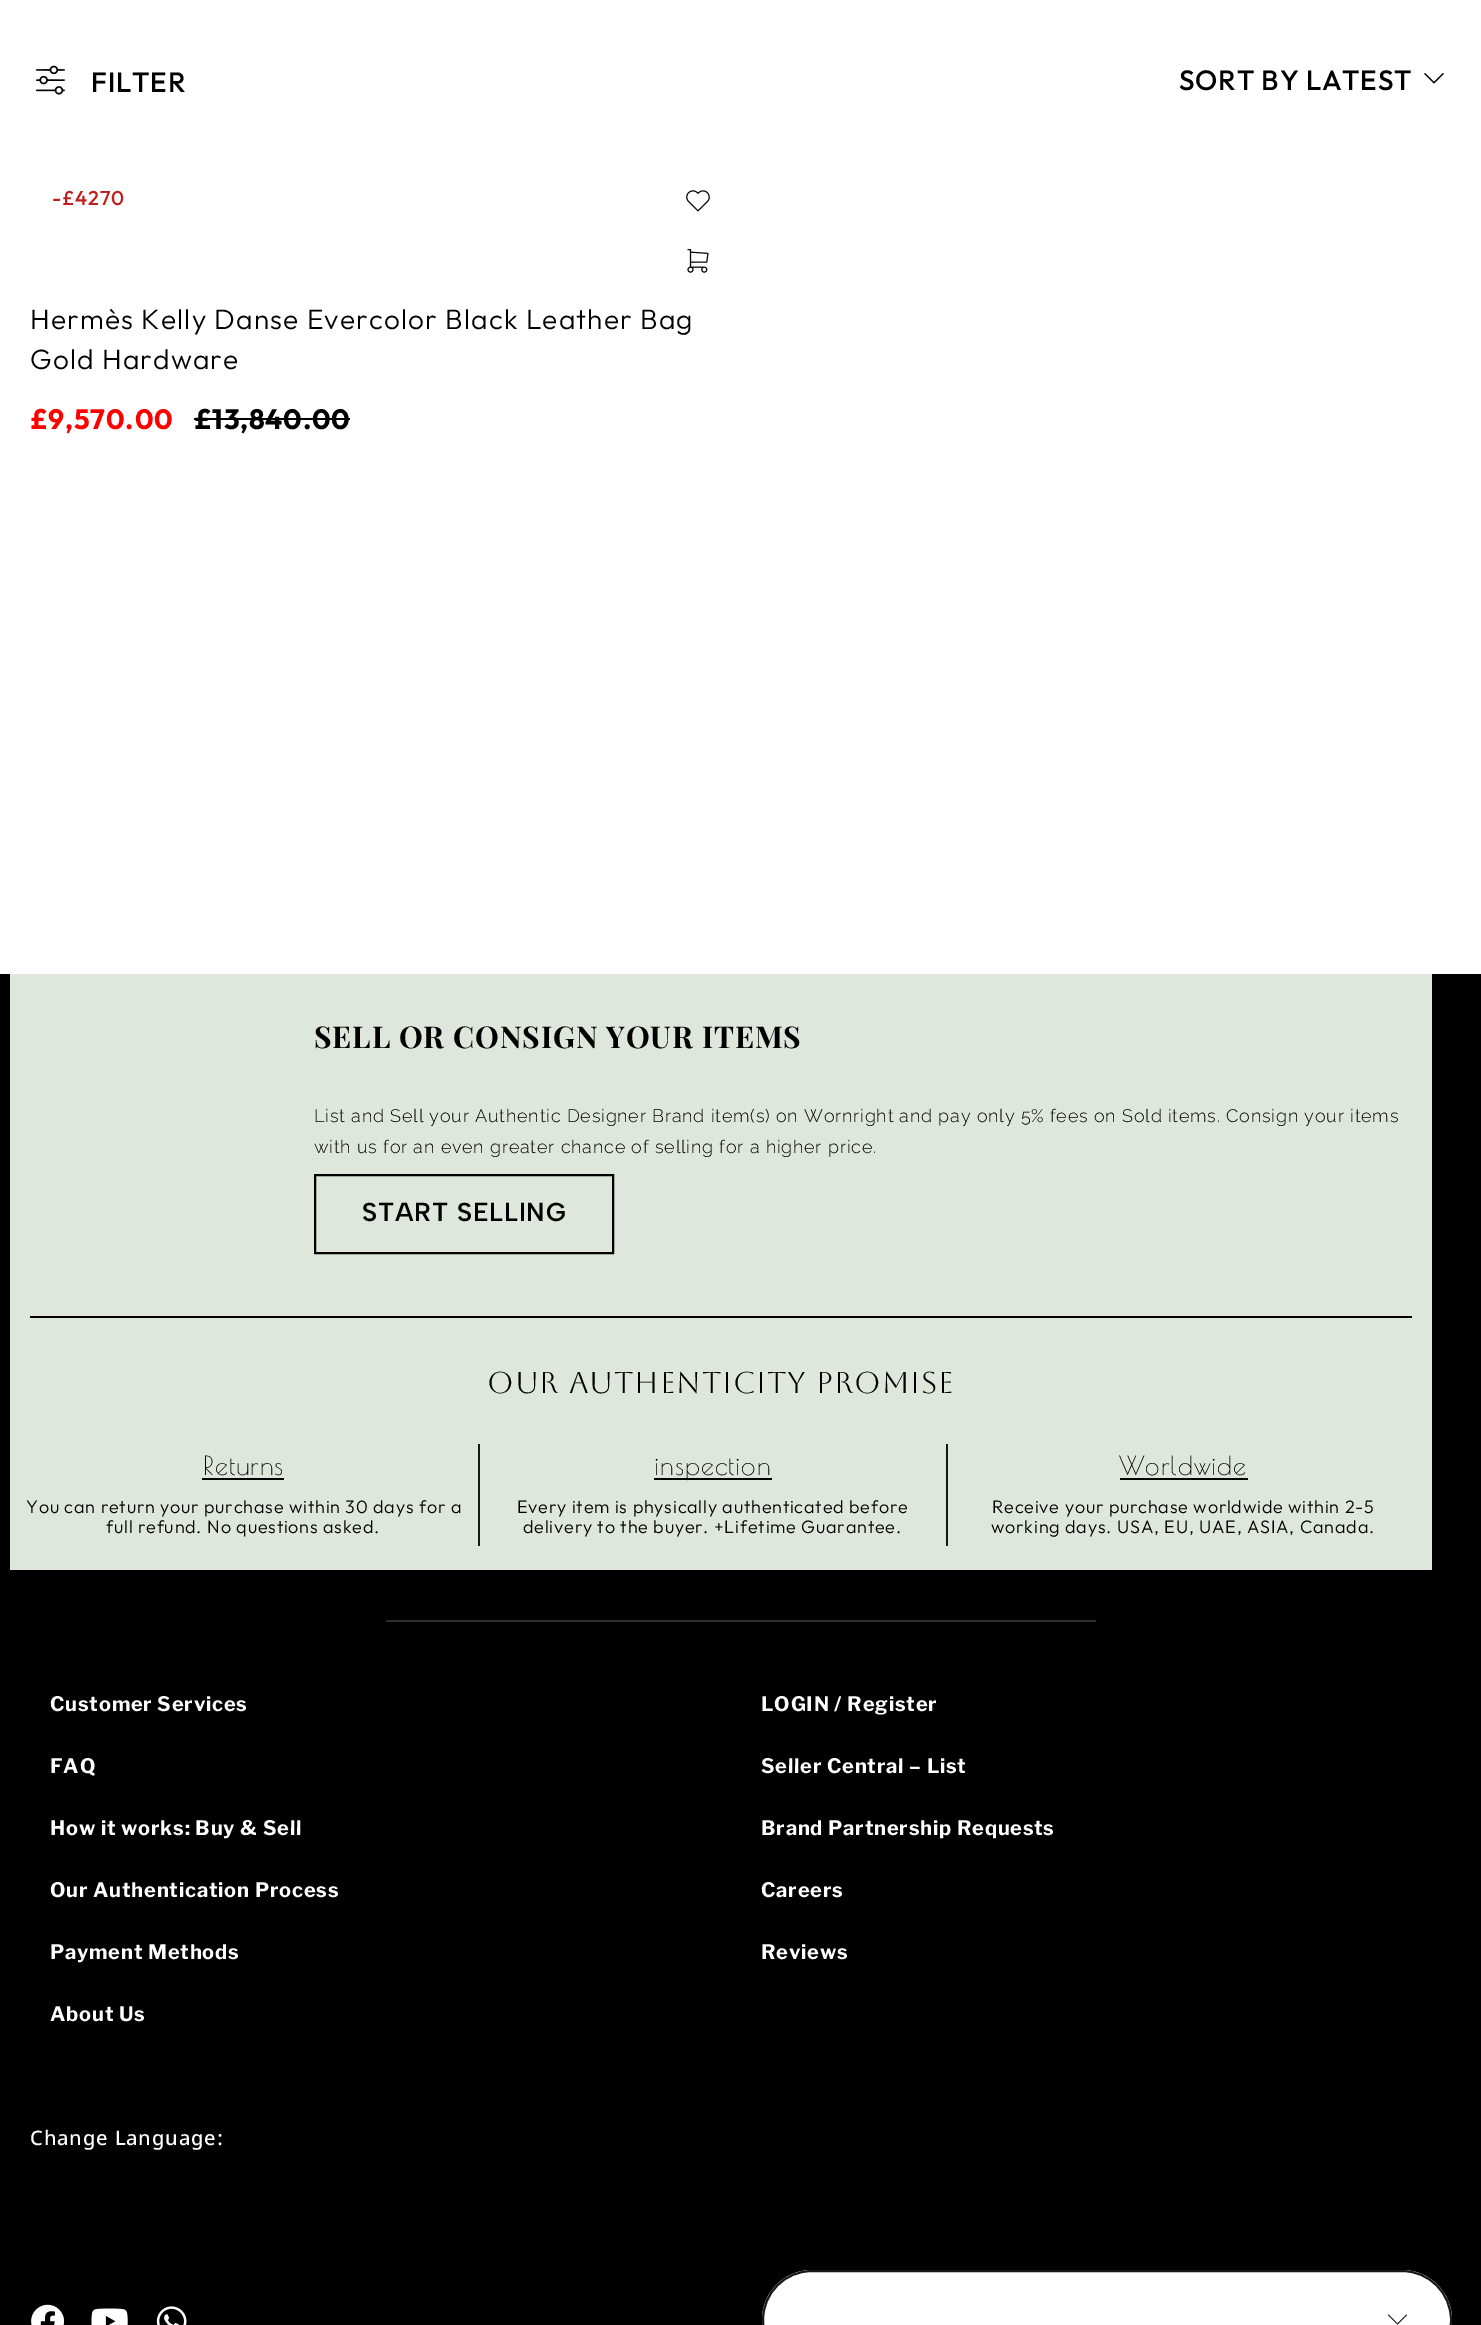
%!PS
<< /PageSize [1481 2325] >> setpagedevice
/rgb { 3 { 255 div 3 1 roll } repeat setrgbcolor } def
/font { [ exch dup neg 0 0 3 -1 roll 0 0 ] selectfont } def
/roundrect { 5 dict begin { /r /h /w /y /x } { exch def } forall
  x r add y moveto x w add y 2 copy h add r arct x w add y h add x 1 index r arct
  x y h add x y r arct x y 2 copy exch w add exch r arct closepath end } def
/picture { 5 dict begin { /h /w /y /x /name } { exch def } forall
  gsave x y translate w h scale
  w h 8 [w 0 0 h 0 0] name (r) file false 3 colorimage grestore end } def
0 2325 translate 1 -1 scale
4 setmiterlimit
255 255 255 rgb
0 0 1481 2325 rectfill
(img/1.rgb) 36 65 29 30 picture
(img/2.rgb) 1424 73 20 11 picture
(img/3.rgb) 686 190 24 22 picture
(img/4.rgb) 687 249 22 24 picture
[
  [194 418 156 2 0 0 0]
  [0 974 1481 1351 0 0 0]
  [10 974 1422 596 223 231 221]
] { aload pop rgb rectfill } forall
0 0 0 rgb
2 setlinewidth
315 1175 298 78 rectstroke
[
  [30 1316 1382 2 0 0 0]
  [478 1444 2 102 24 24 24]
  [202 1478 82 2 0 0 0]
  [946 1444 2 102 24 24 24]
  [654 1478 118 2 0 0 0]
  [1120 1478 128 2 0 0 0]
  [386 1620 710 2 48 47 47]
] { aload pop rgb rectfill } forall
(img/5.rgb) 31 2304 34 21 picture
(img/6.rgb) 91 2308 37 17 picture
(img/7.rgb) 156 2306 31 19 picture
255 255 255 rgb
762 2270 690 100 50 roundrect fill
(img/8.rgb) 1388 2314 19 11 picture
24 24 24 rgb
763 2271 688 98 49 roundrect stroke
/Outfit-Medium 28 font
0 0 0 rgb
91 92 moveto 0.8 0 (FILTER) ashow
1179 90 moveto 0.8 0 (SORT BY LATEST) ashow
/Outfit-Medium 20 font
193 30 30 rgb
52 205 moveto 0.8 0 (-£4270) ashow
/Outfit-Light 28 font
0 0 0 rgb
30 329 moveto 1.2 0 (Hermès Kelly Danse Evercolor Black Leather Bag) ashow
30 369 moveto 1.2 0 (Gold Hardware) ashow
/Outfit-Bold 28 font
255 0 0 rgb
30 429 moveto 0.8 0 (£9,570.00) ashow
0 0 0 rgb
194 429 moveto 0.8 0 (£13,840.00) ashow
/PlayfairDisplay-Bold 30 font
314 1048 moveto 0.9 0 (SELL OR CONSIGN YOUR ITEMS) ashow
/Raleway-Light 18 font
314 1122 moveto 0.8 0 (List and Sell your Authentic Designer Brand item\(s\) on Wornright and pay only 5% fees on Sold items. Consign your items) ashow
314 1153 moveto 0.8 0 (with us for an even greater chance of selling for a higher price.) ashow
/AlbertSans-SemiBold 26 font
362 1221 moveto 0.8 0 (START SELLING) ashow
/Aboreto-Regular 30 font
487 1393 moveto 0.9 0 (Our Authenticity Promise) ashow
/PoiretOne-Regular 26 font
203 1475 moveto 0.9 0 (Returns) ashow
/Outfit-Light 18 font
26 1513 moveto 0.8 0 (You can return your purchase within 30 days for a) ashow
106 1533 moveto 0.8 0 (full refund. No questions asked.) ashow
/PoiretOne-Regular 26 font
654 1475 moveto 0.9 0 (inspection) ashow
/Outfit-Light 18 font
517 1513 moveto 0.8 0 (Every item is physically authenticated before) ashow
523 1533 moveto 0.8 0 (delivery to the buyer. +Lifetime Guarantee.) ashow
/PoiretOne-Regular 26 font
1119 1475 moveto 0.9 0 (Worldwide) ashow
/Outfit-Light 18 font
992 1513 moveto 0.8 0 (Receive your purchase worldwide within 2-5) ashow
991 1533 moveto 0.8 0 (working days. USA, EU, UAE, ASIA, Canada.) ashow
/LibreFranklin-Bold 20 font
255 255 255 rgb
50 1711 moveto 0.8 0 (Customer Services) ashow
50 1773 moveto 0.8 0 (FAQ) ashow
50 1835 moveto 0.8 0 (How it works: Buy & Sell) ashow
50 1897 moveto 0.8 0 (Our Authentication Process) ashow
50 1959 moveto 0.8 0 (Payment Methods) ashow
50 2021 moveto 0.8 0 (About Us) ashow
761 1711 moveto 0.8 0 (LOGIN / Register) ashow
761 1773 moveto 0.8 0 (Seller Central – List) ashow
761 1835 moveto 0.8 0 (Brand Partnership Requests) ashow
761 1897 moveto 0.8 0 (Careers) ashow
761 1959 moveto 0.8 0 (Reviews) ashow
/NotoSansDevanagari-Medium 20 font
30 2145 moveto 0.9 0 (Change Language:) ashow
showpage
